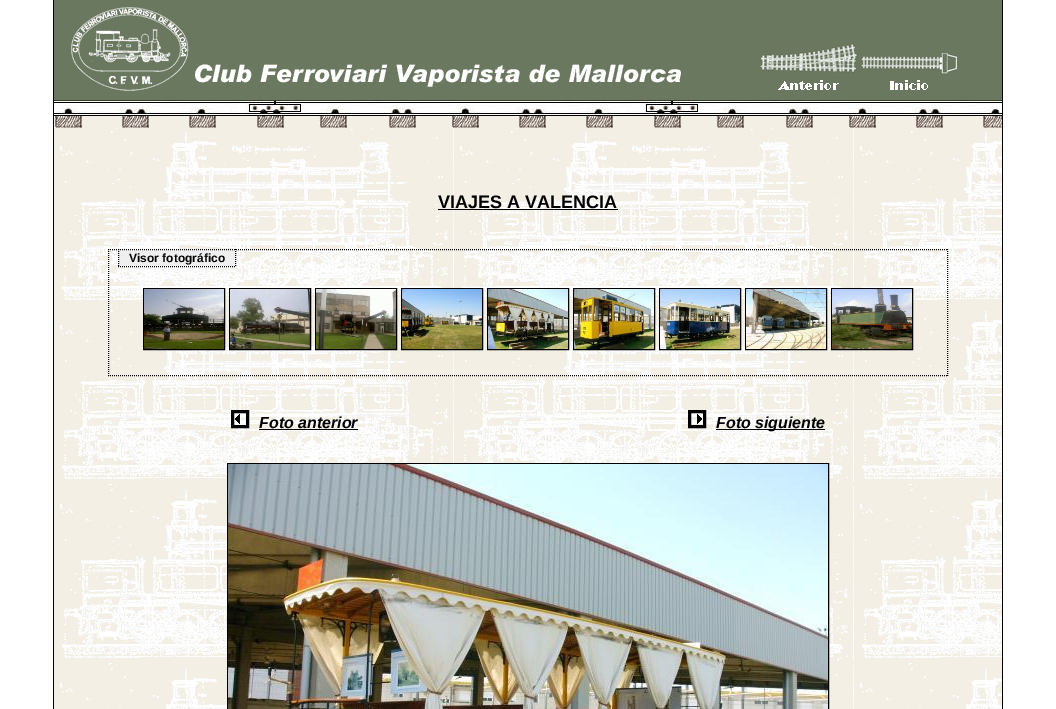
%!PS
<< /PageSize [1056 709] >> setpagedevice
/rgb { 3 { 255 div 3 1 roll } repeat setrgbcolor } def
/font { [ exch dup neg 0 0 3 -1 roll 0 0 ] selectfont } def
/picture { 5 dict begin { /h /w /y /x /name } { exch def } forall
  gsave x y translate w h scale
  w h 8 [w 0 0 h 0 0] name (r) file false 3 colorimage grestore end } def
0 709 translate 1 -1 scale
4 setmiterlimit
255 255 255 rgb
0 0 1056 709 rectfill
[
  [1002 0 1 709 0 0 0]
  [53 0 1 709 0 0 0]
  [54 0 948 100 107 120 96]
] { aload pop rgb rectfill } forall
(img/1.rgb) 71 7 610 84 picture
(img/2.rgb) 759 43 99 31 picture
(img/3.rgb) 860 53 98 22 picture
(img/4.rgb) 778 80 61 10 picture
(img/5.rgb) 890 80 38 10 picture
243 239 228 rgb
54 116 929 12 rectfill
(img/6.rgb) 54 100 948 28 picture
54 128 948 581 rectfill
(img/7.rgb) 60 128 942 581 picture
0 0 0 rgb
438 209 180 1 rectfill
[1 1] 0 setdash
108 249.5 moveto 948 249.5 lineto stroke
947.5 249 moveto 947.5 376 lineto stroke
108 375.5 moveto 948 375.5 lineto stroke
108.5 249 moveto 108.5 376 lineto stroke
239 239 239 rgb
118 249 118 18 rectfill
0 0 0 rgb
118 249.5 moveto 236 249.5 lineto stroke
235.5 249 moveto 235.5 267 lineto stroke
118 266.5 moveto 236 266.5 lineto stroke
118.5 249 moveto 118.5 267 lineto stroke
[] 0 setdash
143.5 288.5 81 61 rectstroke
(img/8.rgb) 144 289 80 60 picture
229.5 288.5 81 61 rectstroke
(img/9.rgb) 230 289 80 60 picture
315.5 288.5 81 61 rectstroke
(img/10.rgb) 316 289 80 60 picture
401.5 288.5 81 61 rectstroke
(img/11.rgb) 402 289 80 60 picture
487.5 288.5 81 61 rectstroke
(img/12.rgb) 488 289 80 60 picture
573.5 288.5 81 61 rectstroke
(img/13.rgb) 574 289 80 60 picture
659.5 288.5 81 61 rectstroke
(img/14.rgb) 660 289 80 60 picture
745.5 288.5 81 61 rectstroke
(img/15.rgb) 746 289 80 60 picture
831.5 288.5 81 61 rectstroke
(img/16.rgb) 832 289 80 60 picture
3 setlinewidth
232.5 411.5 15 15 rectstroke
(img/17.rgb) 235 414 5 10 picture
259 429 99 1 rectfill
689.5 411.5 15 15 rectstroke
(img/18.rgb) 697 414 5 10 picture
716 429 109 1 rectfill
1 setlinewidth
227.5 463.5 601 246 rectstroke
(img/19.rgb) 228 464 600 245 picture
/LiberationSans-Bold 18 font
438 208 moveto (VIAJES A VALENCIA) show
/LiberationSans-Bold 12 font
129 262 moveto (Visor fotográfico) show
/LiberationSans-BoldItalic 16 font
259 428 moveto (Foto anterior) show
716 428 moveto (Foto siguiente) show
showpage
